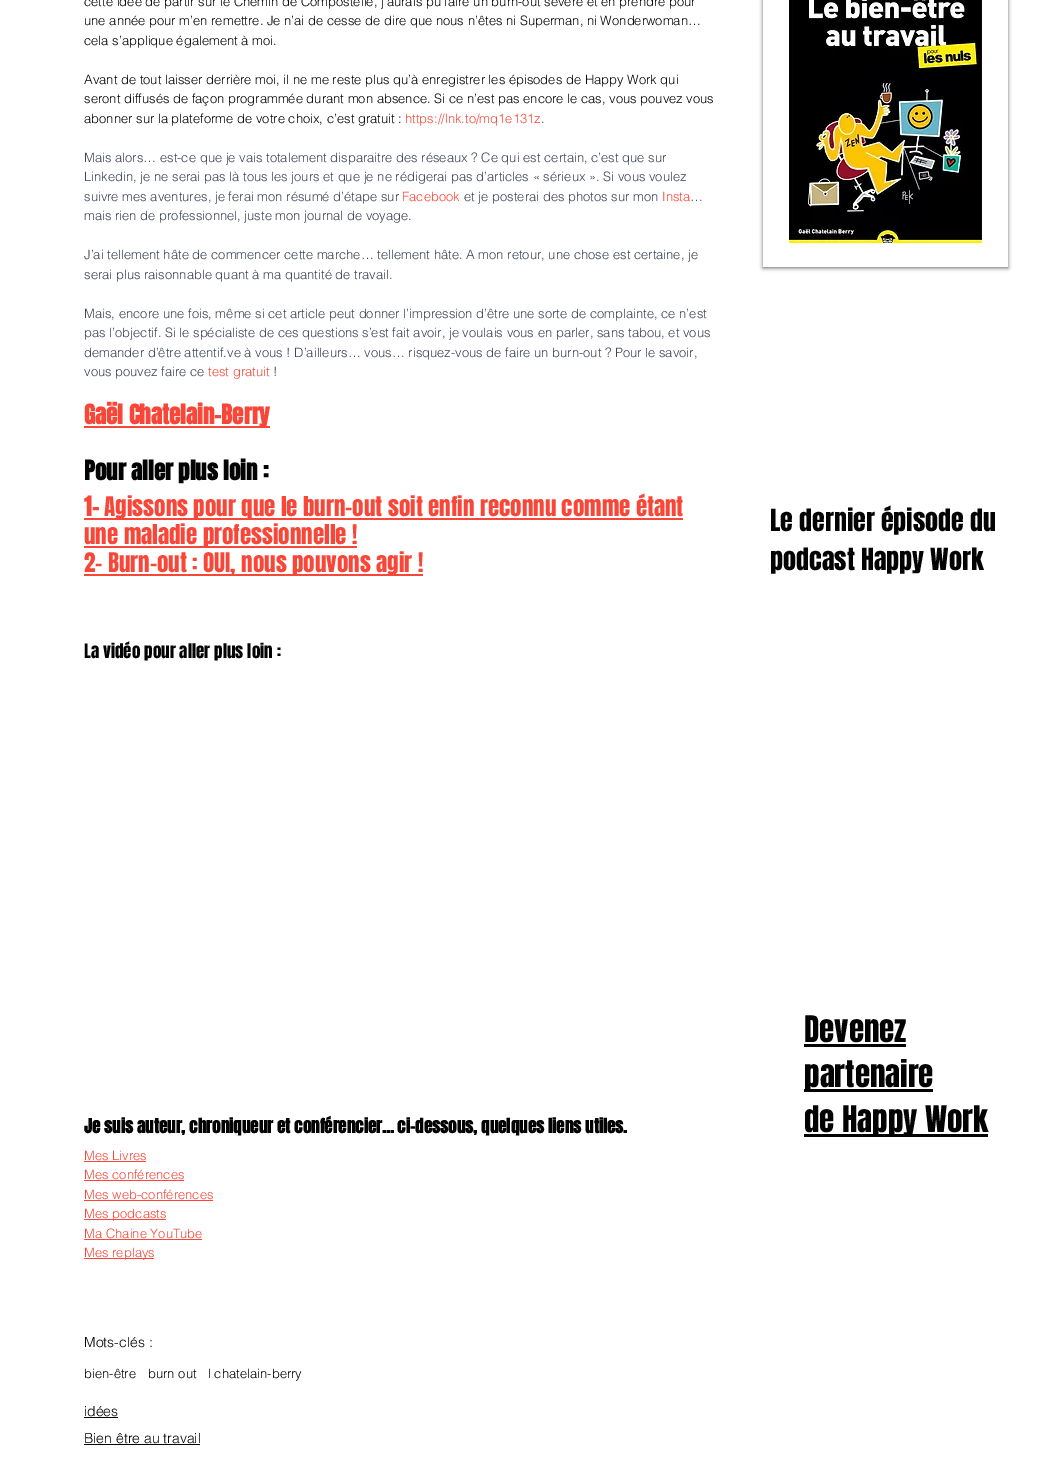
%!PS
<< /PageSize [1051 1461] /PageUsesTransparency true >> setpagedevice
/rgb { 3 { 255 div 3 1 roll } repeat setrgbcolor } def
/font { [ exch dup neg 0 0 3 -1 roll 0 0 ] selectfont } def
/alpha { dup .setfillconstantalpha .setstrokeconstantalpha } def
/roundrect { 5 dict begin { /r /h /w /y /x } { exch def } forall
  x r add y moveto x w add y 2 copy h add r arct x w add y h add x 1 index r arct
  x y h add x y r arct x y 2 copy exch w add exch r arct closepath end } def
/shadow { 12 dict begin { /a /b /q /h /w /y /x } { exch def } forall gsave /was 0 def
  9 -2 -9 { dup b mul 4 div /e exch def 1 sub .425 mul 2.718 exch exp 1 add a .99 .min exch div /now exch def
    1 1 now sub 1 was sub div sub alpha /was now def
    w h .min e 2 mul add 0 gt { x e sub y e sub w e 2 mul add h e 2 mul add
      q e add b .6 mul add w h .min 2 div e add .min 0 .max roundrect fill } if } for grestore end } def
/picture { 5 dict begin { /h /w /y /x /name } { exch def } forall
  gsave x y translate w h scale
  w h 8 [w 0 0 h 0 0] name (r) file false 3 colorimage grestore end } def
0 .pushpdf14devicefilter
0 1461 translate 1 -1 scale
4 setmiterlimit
255 255 255 rgb
0 0 1051 1461 rectfill
[
  [84 426 186 2 248 71 56]
  [84 518 599 2 248 71 56]
  [84 546 273 2 248 71 56]
  [84 574 339 2 248 71 56]
  [84 1161 62 1 248 71 56]
  [84 1180 100 1 248 71 56]
  [84 1200 129 1 248 71 56]
  [84 1219 82 1 248 71 56]
  [84 1239 118 1 248 71 56]
  [84 1258 70 1 248 71 56]
  [84 1417 34 1 3 3 3]
  [84 1444 116 1 3 3 3]
] { aload pop rgb rectfill } forall
gsave
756 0 moveto 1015 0 lineto 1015 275 lineto 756 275 lineto closepath 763 -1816 moveto 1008 -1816 lineto 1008 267 lineto 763 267 lineto closepath eoclip newpath
0 0 0 rgb
763 -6 245 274 0 2 0.6 shadow
grestore
(img/1.rgb) 789 0 193 243 picture
[
  [804 1044 102 3 3 3 3]
  [804 1089 129 3 3 3 3]
  [804 1134 184 3 3 3 3]
] { aload pop rgb rectfill } forall
/helvetica-Light 13 font
[
  [(cette idée de partir sur le Chemin de Compostelle, j’aurais pu faire un burn-out sévère et en prendre pour) 84 6]
  [(une année pour m’en remettre. Je n’ai de cesse de dire que nous n’êtes ni Superman, ni Wonderwoman…) 84 25]
  [(cela s’applique également à moi.) 84 45]
  [(Avant de tout laisser derrière moi, il ne me reste plus qu’à enregistrer les épisodes de Happy Work qui) 84 84]
  [(seront diffusés de façon programmée durant mon absence. Si ce n’est pas encore le cas, vous pouvez vous) 84 103]
  [(abonner sur la plateforme de votre choix, c’est gratuit :) 84 123]
] { aload pop moveto show } forall
248 71 56 rgb
405 123 moveto (https://lnk.to/mq1e131z) show
62 67 87 rgb
[
  [(.) 541 123]
  [(Mais alors… est-ce que je vais totalement disparaitre des réseaux ? Ce qui est certain, c’est que sur) 84 162]
  [(Linkedin, je ne serai pas là tous les jours et que je ne rédigerai pas d’articles « sérieux ». Si vous voulez) 84 181]
  [(suivre mes aventures, je ferai mon résumé d’étape sur) 84 201]
] { aload pop moveto show } forall
248 71 56 rgb
402 201 moveto (Facebook) show
62 67 87 rgb
464 201 moveto (et je posterai des photos sur mon) show
248 71 56 rgb
662 201 moveto (Insta) show
62 67 87 rgb
[
  [(…) 690 201]
  [(mais rien de professionnel, juste mon journal de voyage.) 84 220]
  [(J’ai tellement hâte de commencer cette marche… tellement hâte. A mon retour, une chose est certaine, je) 84 259]
  [(serai plus raisonnable quant à ma quantité de travail.) 84 279]
  [(Mais, encore une fois, même si cet article peut donner l’impression d’être une sorte de complainte, ce n’est) 84 318]
  [(pas l’objectif. Si le spécialiste de ces questions s’est fait avoir, je voulais vous en parler, sans tabou, et vous) 84 337]
  [(demander d’être attentif.ve à vous ! D’ailleurs… vous… risquez-vous de faire un burn-out ? Pour le savoir,) 84 357]
  [(vous pouvez faire ce) 84 376]
] { aload pop moveto show } forall
248 71 56 rgb
208 376 moveto (test gratuit) show
62 67 87 rgb
273 376 moveto (!) show
/Anton-Bold 23 font
248 71 56 rgb
84 424 moveto (Gaël Chatelain-Berry) show
3 3 3 rgb
84 480 moveto (Pour aller plus loin :) show
248 71 56 rgb
84 516 moveto (1-) show
/Anton-Regular 23 font
[
  [(Agissons pour que le burn-out soit enfin reconnu comme étant) 104 516]
  [(une maladie professionnelle !) 84 544]
  [(2- Burn-out : OUI, nous pouvons agir !) 84 572]
] { aload pop moveto show } forall
/Anton-Regular 17 font
3 3 3 rgb
84 658 moveto (La vidéo pour aller plus loin :) show
/Anton-Bold 17 font
84 1133 moveto (Je suis auteur, chroniqueur et conférencier... ci-dessous, quelques liens utiles.) show
/helvetica-Light 13 font
248 71 56 rgb
[
  [(Mes Livres) 84 1160]
  [(Mes conférences) 84 1179]
  [(Mes web-conférences) 84 1199]
  [(Mes podcasts) 84 1218]
  [(Ma Chaine YouTube) 84 1238]
  [(Mes replays) 84 1257]
] { aload pop moveto show } forall
/helvetica-Light 14 font
3 3 3 rgb
84 1347 moveto (Mots-clés :) show
/helvetica-Light 13 font
[
  [(bien-être) 84 1378]
  [(burn out) 148 1378]
  [(l chatelain-berry) 208 1378]
] { aload pop moveto show } forall
/helvetica-Light 14 font
84 1416 moveto (idées) show
84 1443 moveto (Bien être au travail) show
/Anton-Regular 26 font
770 531 moveto (Le dernier épisode du) show
770 570 moveto (podcast Happy Work) show
/Anton-Regular 31 font
[
  [(Devenez) 804 1042]
  [(partenaire) 804 1087]
  [(de Happy Work) 804 1132]
] { aload pop moveto show } forall
.poppdf14devicefilter showpage
